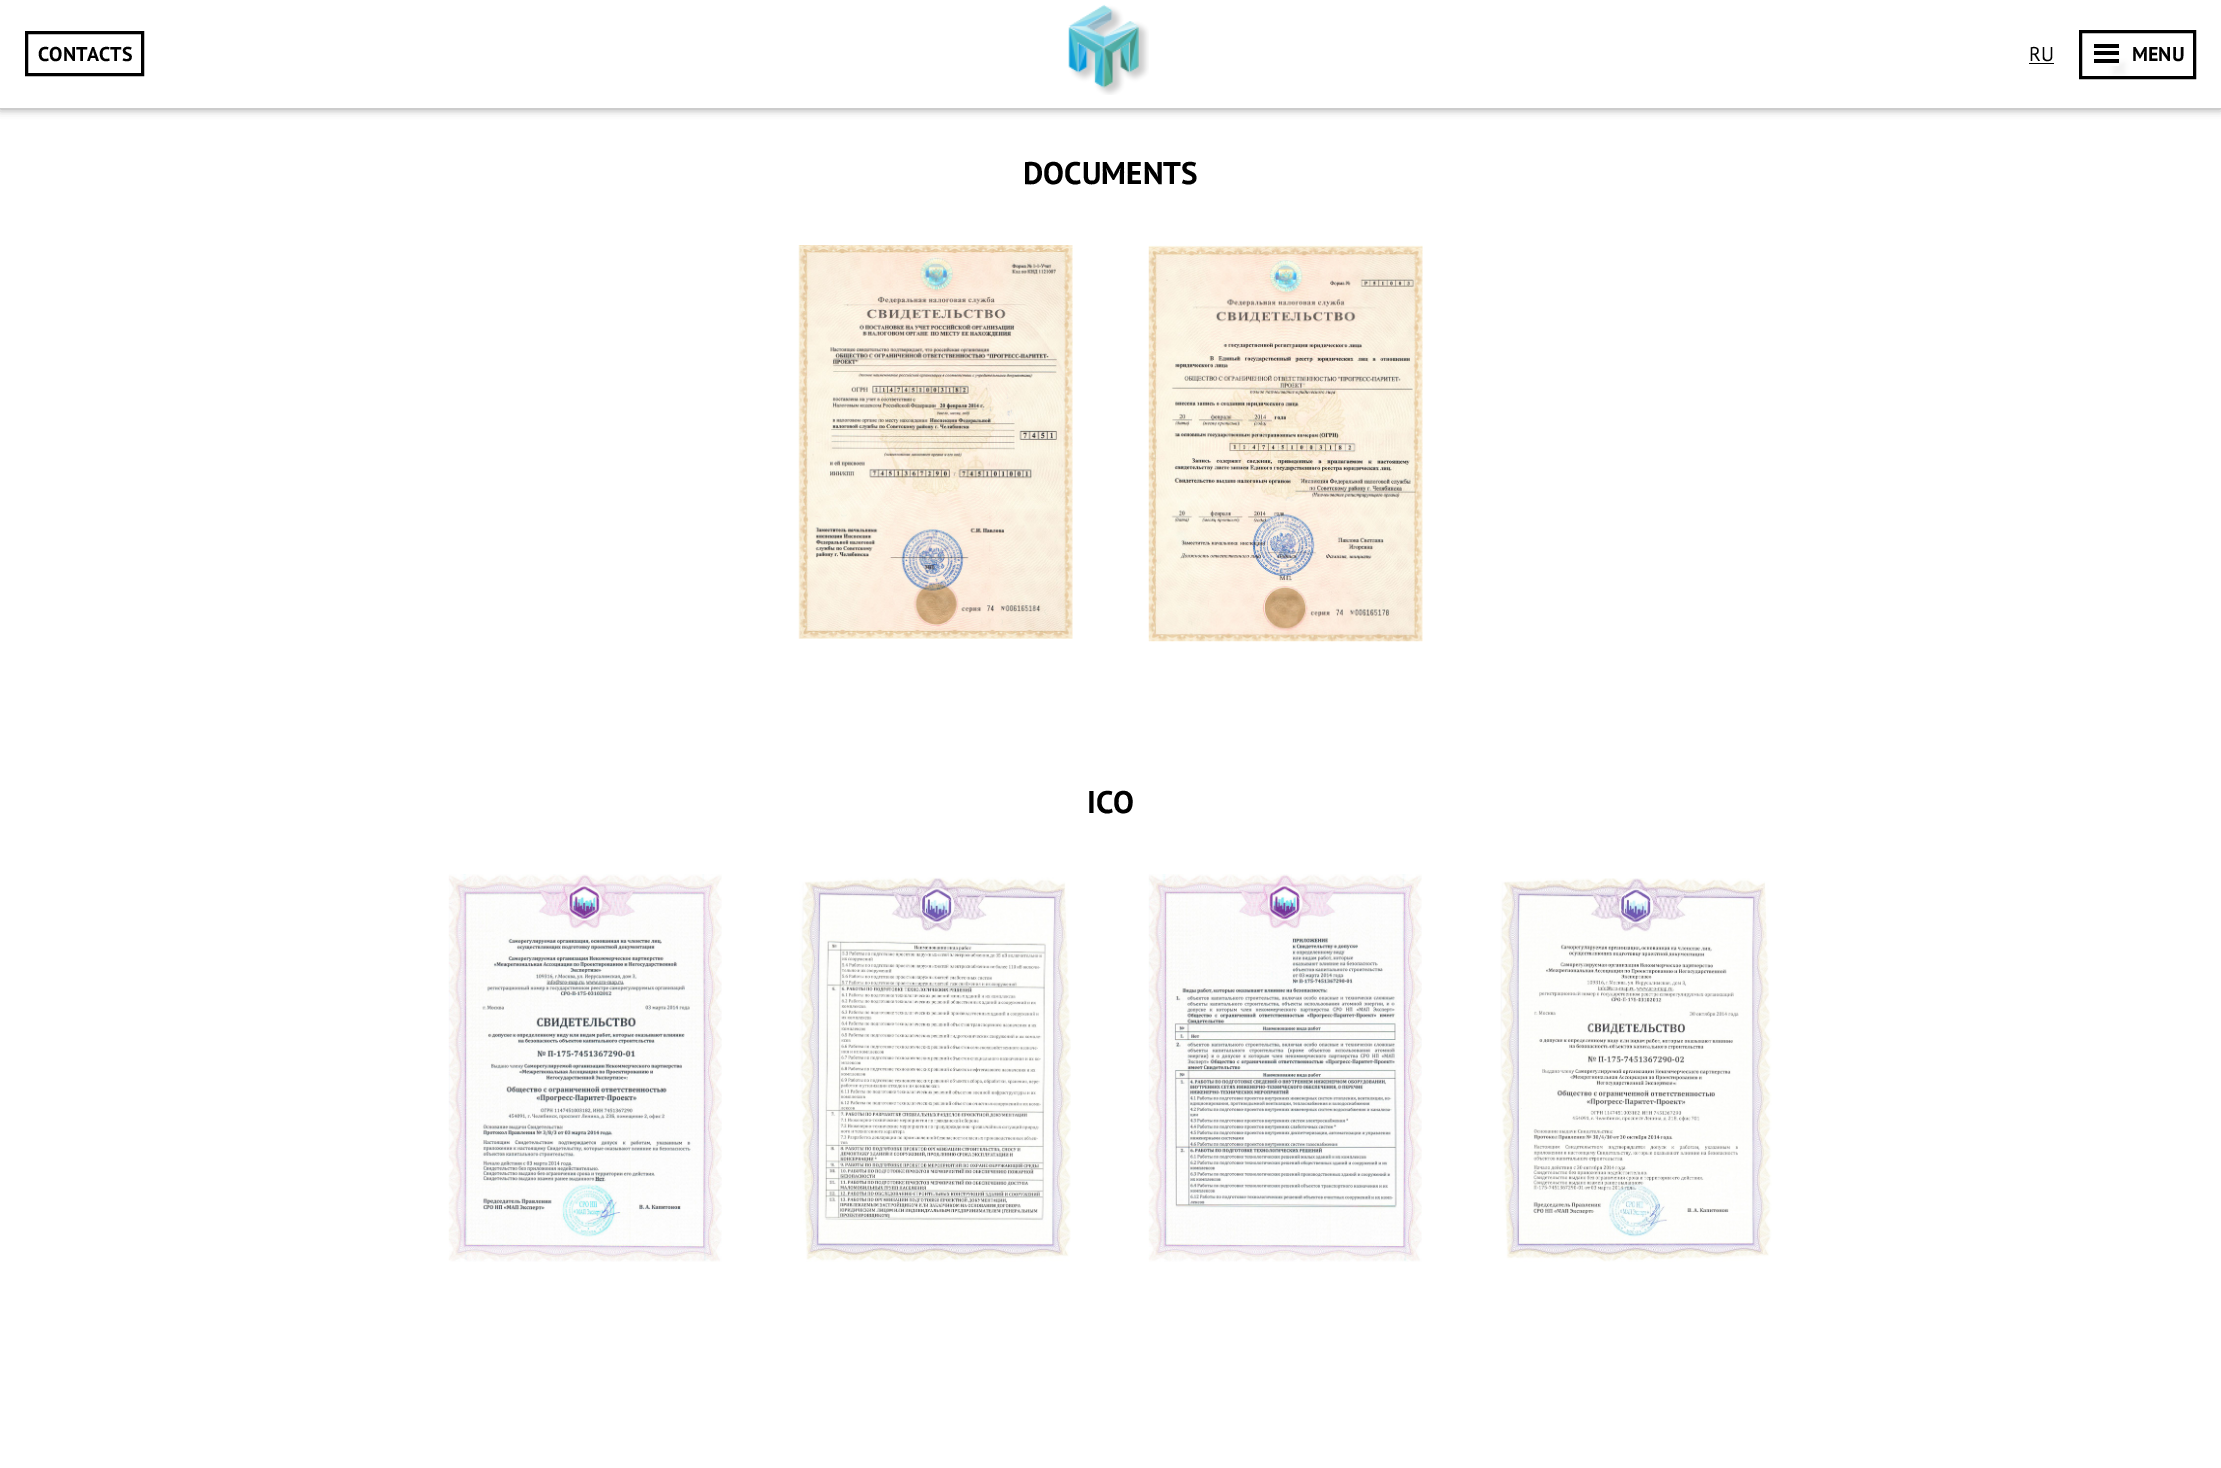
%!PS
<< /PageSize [2221 1468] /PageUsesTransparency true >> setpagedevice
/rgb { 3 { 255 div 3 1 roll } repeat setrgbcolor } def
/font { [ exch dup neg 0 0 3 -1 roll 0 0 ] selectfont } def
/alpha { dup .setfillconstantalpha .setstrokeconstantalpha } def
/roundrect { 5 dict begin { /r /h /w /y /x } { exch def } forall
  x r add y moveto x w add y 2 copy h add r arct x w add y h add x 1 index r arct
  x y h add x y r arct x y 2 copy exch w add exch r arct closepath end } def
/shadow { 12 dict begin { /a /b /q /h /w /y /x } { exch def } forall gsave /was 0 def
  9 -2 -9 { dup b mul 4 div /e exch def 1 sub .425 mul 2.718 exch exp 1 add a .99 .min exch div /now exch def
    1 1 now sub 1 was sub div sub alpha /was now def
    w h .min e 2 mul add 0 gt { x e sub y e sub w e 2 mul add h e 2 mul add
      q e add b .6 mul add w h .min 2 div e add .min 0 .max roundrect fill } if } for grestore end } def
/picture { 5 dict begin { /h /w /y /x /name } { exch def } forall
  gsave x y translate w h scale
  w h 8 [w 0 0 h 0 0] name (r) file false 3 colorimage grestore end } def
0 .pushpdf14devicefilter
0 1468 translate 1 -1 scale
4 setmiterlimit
255 255 255 rgb
0 0 2221 1468 rectfill
50 50 50 rgb
0 1 2221 108 0 4.5 0.5 shadow
255 255 255 rgb
0 0 2221 108 rectfill
0 0 0 rgb
3 setlinewidth
26.5 32.5 116 42 rectstroke
(img/1.rgb) 1068 4 81 91 picture
2029 63 25 1 rectfill
2080.5 31.5 114 46 rectstroke
gsave
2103 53 moveto 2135 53 lineto 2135 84 lineto 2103 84 lineto closepath 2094 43 moveto 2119 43 lineto 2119 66 lineto 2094 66 lineto closepath eoclip newpath
2113 63 12 11 0 3 0.05 shadow
grestore
[
  [2094 51 25 4 0 0 0]
  [2094 44 25 4 0 0 0]
  [2094 59 25 4 0 0 0]
] { aload pop rgb rectfill } forall
(img/2.rgb) 798 245 275 394 picture
(img/3.rgb) 1148 245 275 397 picture
(img/4.rgb) 448 874 274 388 picture
(img/5.rgb) 799 877 272 385 picture
(img/6.rgb) 1148 874 274 388 picture
(img/7.rgb) 1500 878 272 384 picture
/PTSans-Bold 20 font
38 61 moveto (CONTACTS) show
/PTSans-Regular 20 font
2029 61 moveto (RU) show
/PTSans-Bold 20 font
2132 61 moveto (MENU) show
/PTSans-Bold 31.25 font
1023 184 moveto (DOCUMENTS) show
1087 813 moveto (ICO) show
.poppdf14devicefilter showpage
